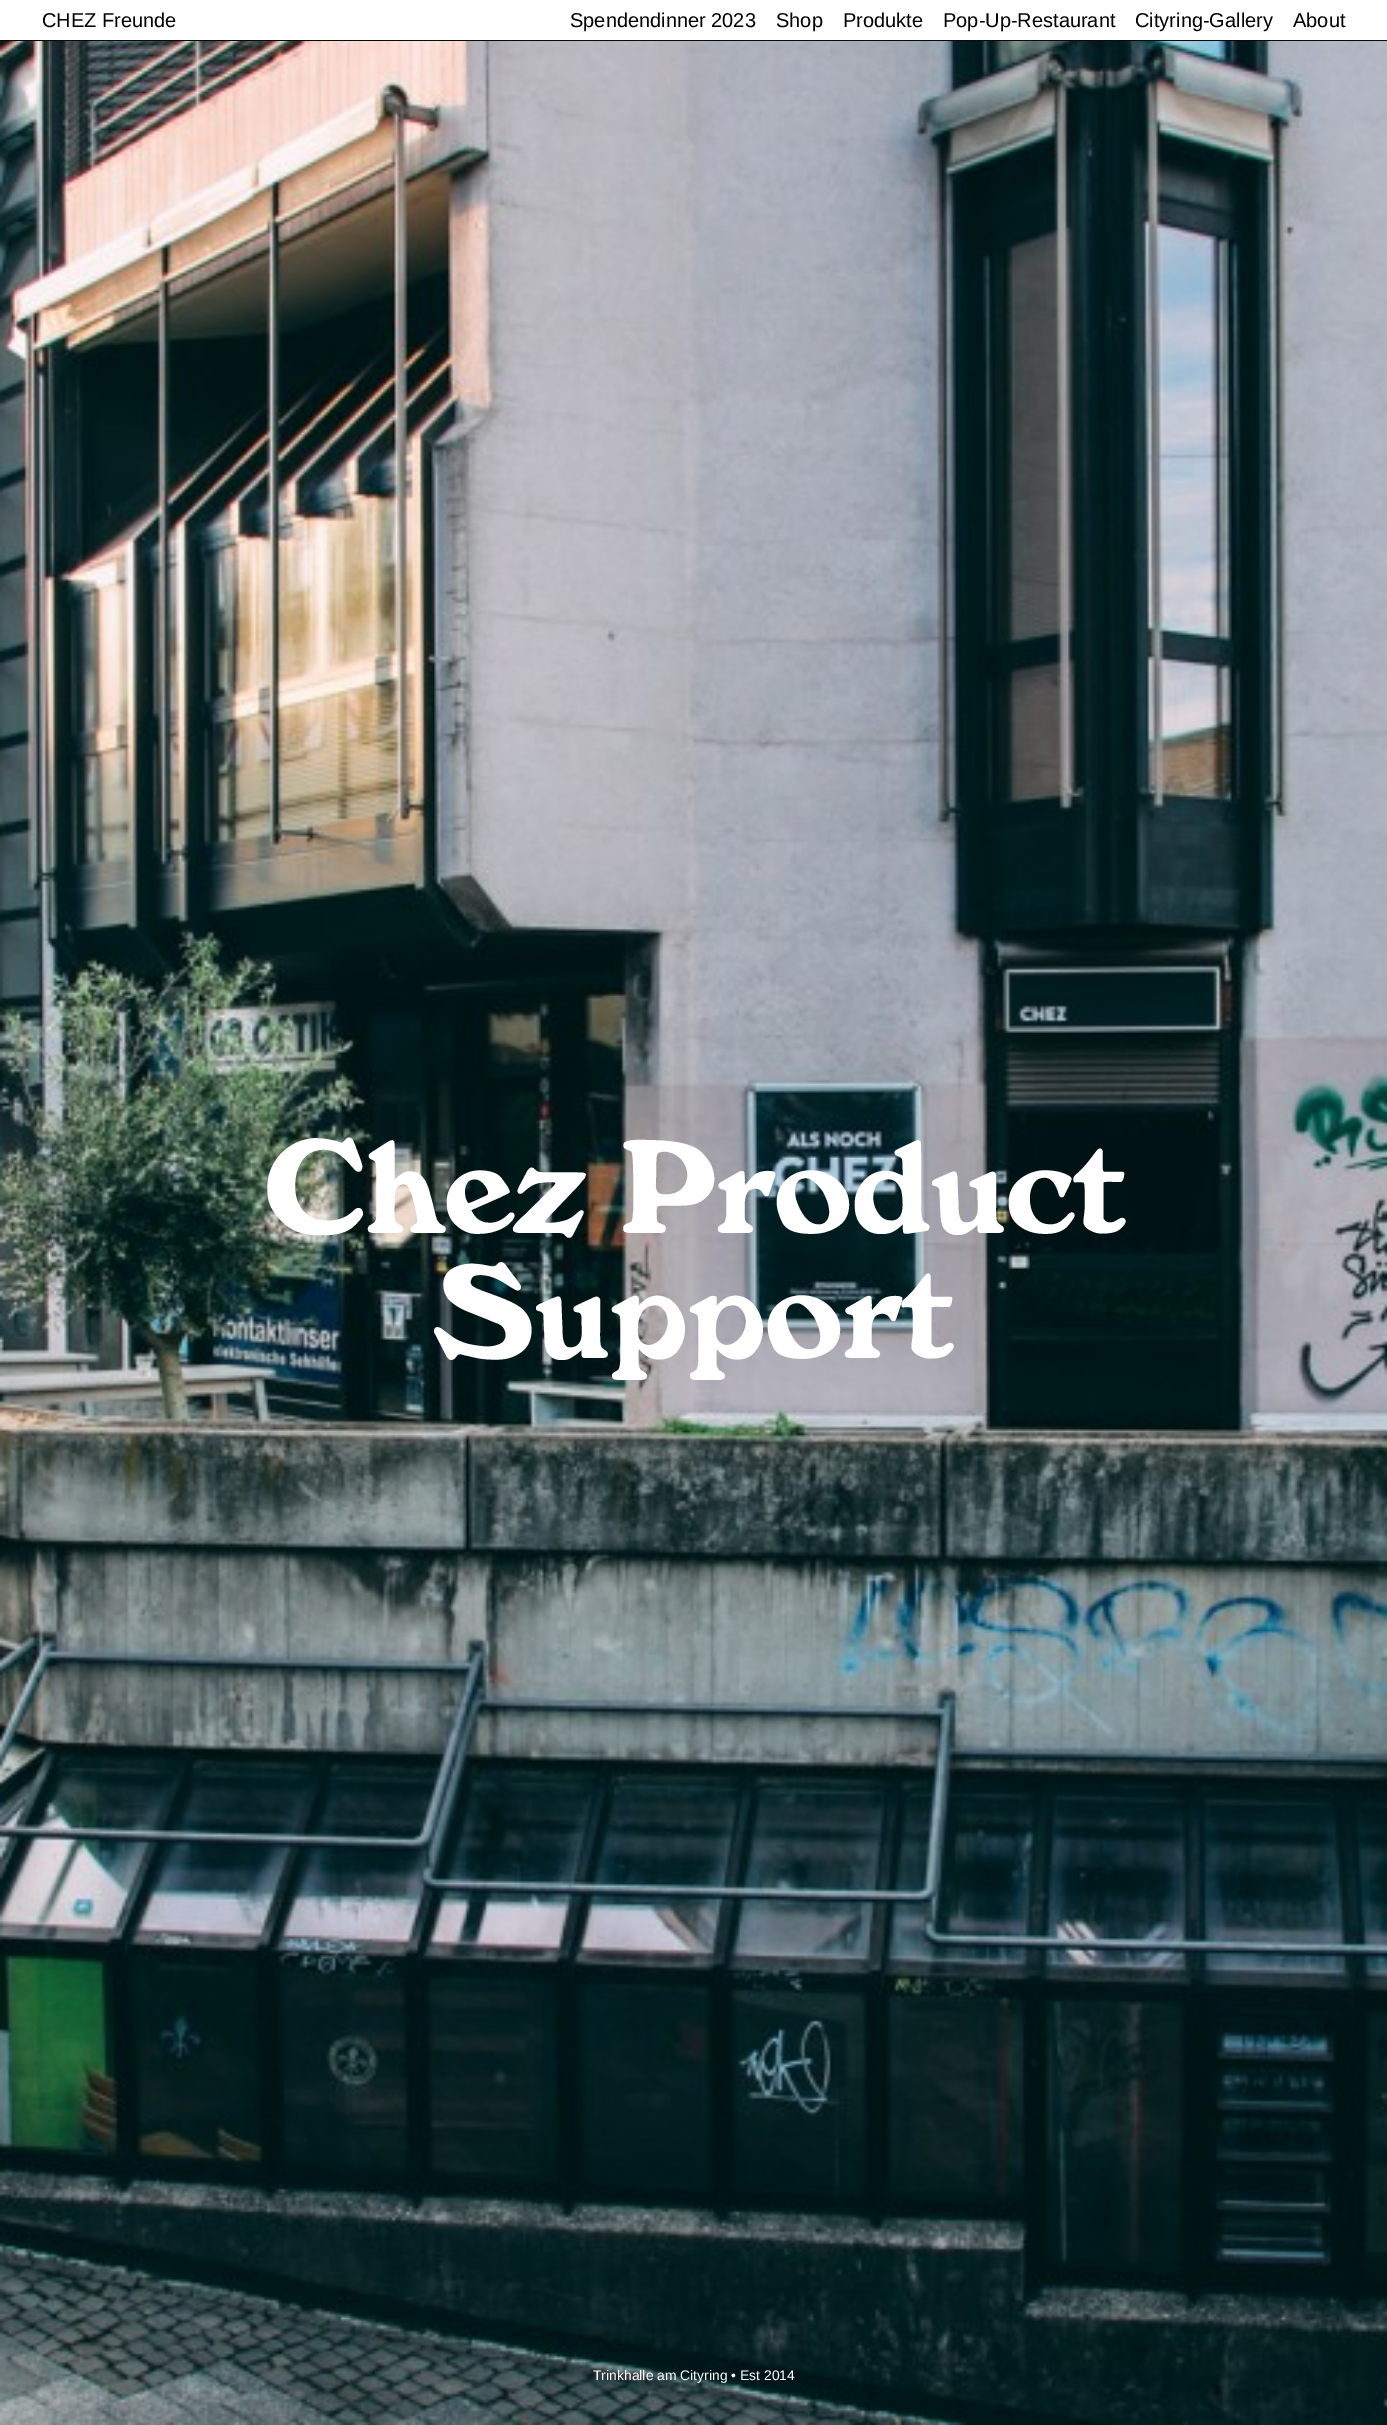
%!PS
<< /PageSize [1387 2425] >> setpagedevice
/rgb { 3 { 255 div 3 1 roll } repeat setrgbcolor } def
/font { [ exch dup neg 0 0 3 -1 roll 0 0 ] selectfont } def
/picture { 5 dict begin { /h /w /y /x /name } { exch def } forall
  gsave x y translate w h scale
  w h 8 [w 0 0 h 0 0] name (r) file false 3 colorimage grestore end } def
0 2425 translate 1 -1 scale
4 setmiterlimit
255 255 255 rgb
0 0 1387 2425 rectfill
10 10 10 rgb
0 40 1387 1 rectfill
(img/1.rgb) 0 41 1387 2384 picture
/LiberationSans-Regular 20 font
0 0 0 rgb
[
  [(CHEZ Freunde) 42 27]
  [(Spendendinner 2023) 570 27]
  [(Shop) 776 27]
  [(Produkte) 843 27]
  [(Pop-Up-Restaurant) 943 27]
  [(Cityring-Gallery) 1135 27]
  [(About) 1293 27]
] { aload pop moveto show } forall
/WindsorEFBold-Bold 138.75 font
255 255 255 rgb
264 1233 moveto (Chez Product) show
435 1358 moveto (Support) show
/LiberationSans-Regular 13.9 font
593 2380 moveto (Trinkhalle am Cityring • Est 2014) show
showpage
